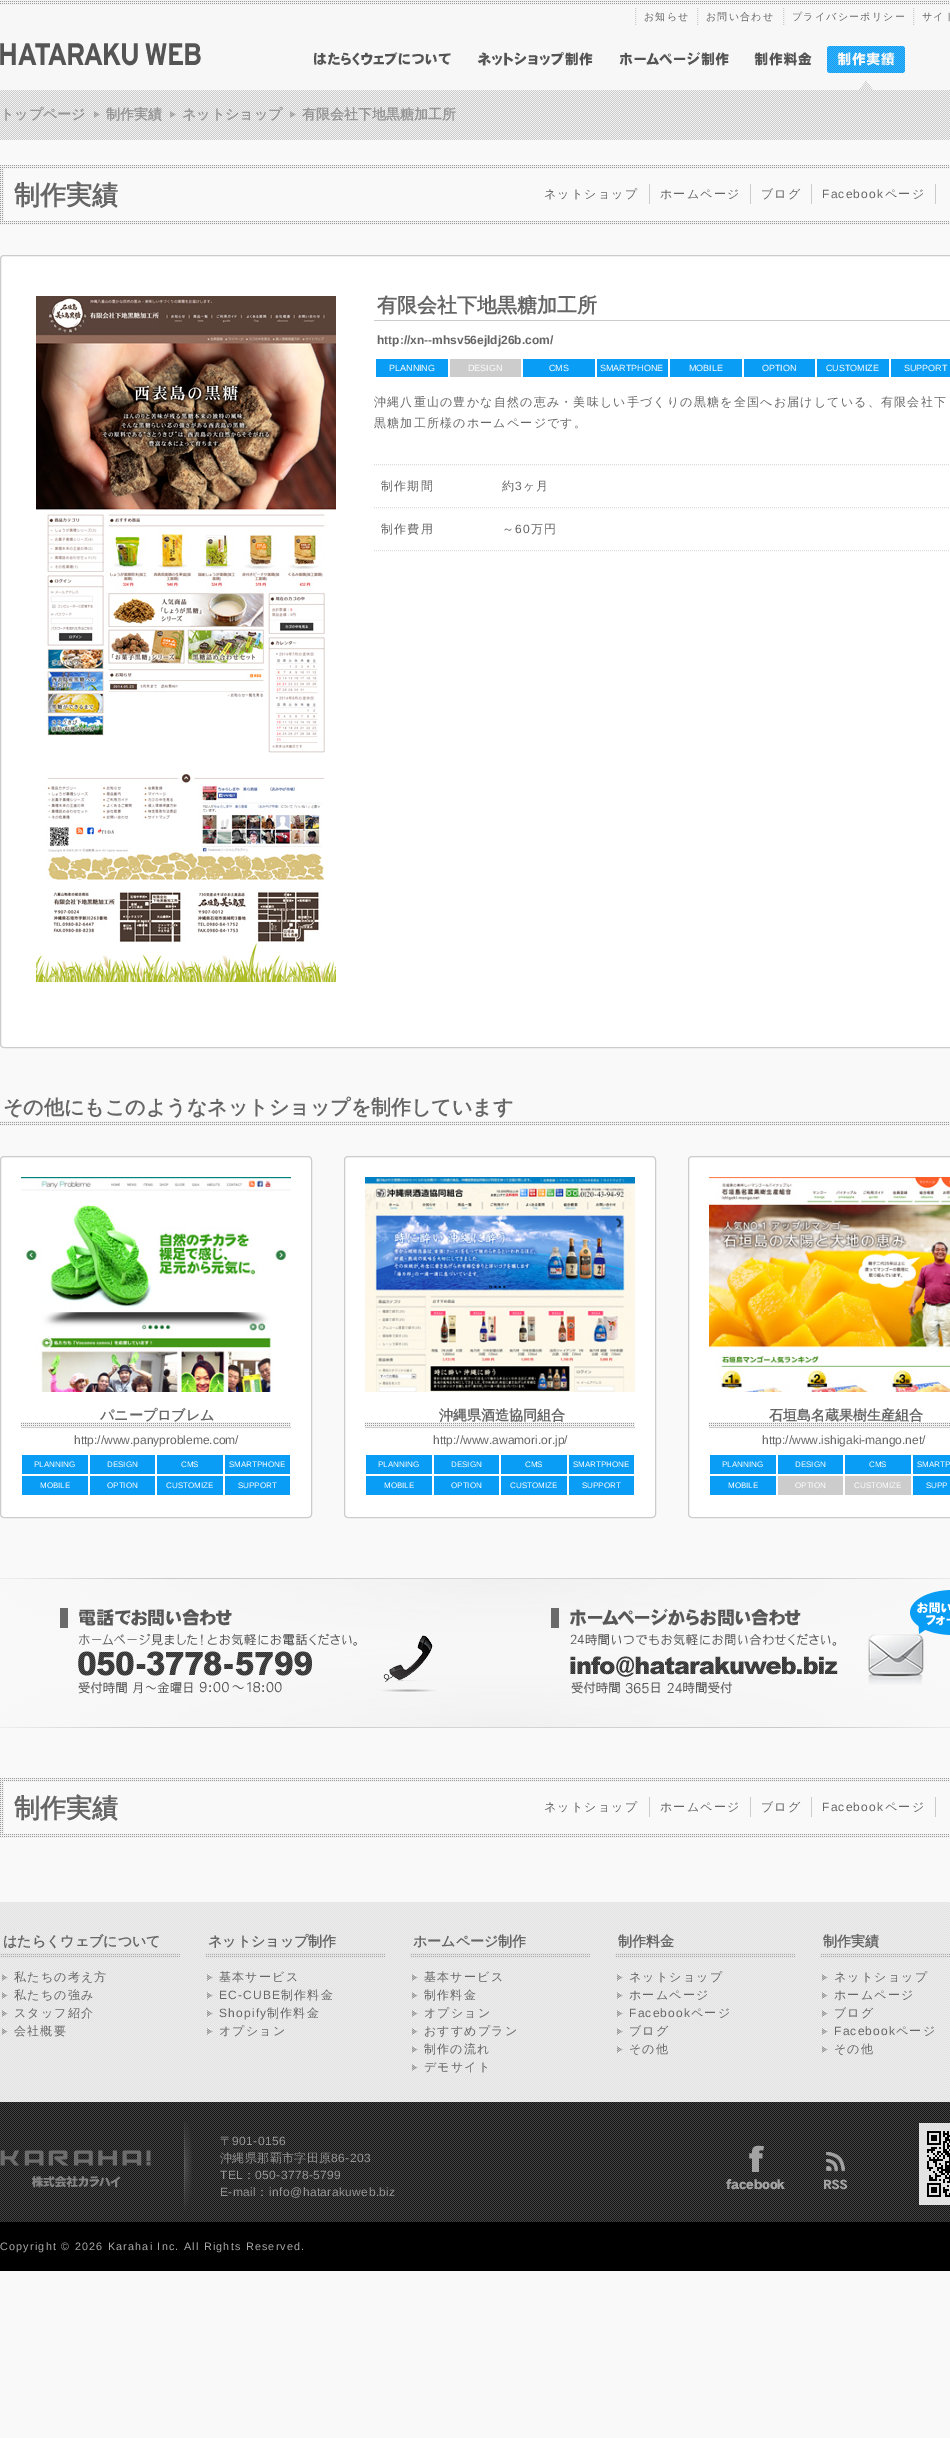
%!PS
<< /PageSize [950 2438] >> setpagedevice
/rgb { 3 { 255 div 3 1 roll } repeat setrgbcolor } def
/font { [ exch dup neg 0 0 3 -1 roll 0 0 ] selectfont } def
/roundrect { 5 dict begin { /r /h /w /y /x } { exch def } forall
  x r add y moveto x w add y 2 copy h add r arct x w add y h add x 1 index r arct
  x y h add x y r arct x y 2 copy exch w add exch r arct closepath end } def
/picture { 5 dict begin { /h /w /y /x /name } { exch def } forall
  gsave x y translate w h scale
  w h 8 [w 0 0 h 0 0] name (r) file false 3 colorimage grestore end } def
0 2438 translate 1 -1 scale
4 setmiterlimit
249 249 249 rgb
0 0 950 2438 rectfill
(img/1.rgb) 0 0 950 140 picture
204 204 204 rgb
[1 1] 0 setdash
635.5 8 moveto 635.5 26 lineto stroke
697.5 8 moveto 697.5 26 lineto stroke
783.5 8 moveto 783.5 26 lineto stroke
913.5 8 moveto 913.5 26 lineto stroke
(img/2.rgb) 0 43 201 23 picture
(img/3.rgb) 314 52 137 14 picture
(img/4.rgb) 477 52 116 14 picture
(img/5.rgb) 619 52 110 14 picture
(img/6.rgb) 754 52 58 14 picture
(img/7.rgb) 827 46 78 44 picture
(img/8.rgb) 94 111 6 7 picture
(img/8.rgb) 170 111 6 7 picture
(img/8.rgb) 290 111 6 7 picture
(img/9.rgb) 0 165 950 60 picture
[
  [4 169 946 52 249 249 249]
  [649 184 1 20 204 204 204]
  [750 184 1 20 204 204 204]
  [811 184 1 20 204 204 204]
  [935 184 1 20 204 204 204]
] { aload pop rgb rectfill } forall
255 255 255 rgb
0.5 255.5 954 792 3.5 roundrect gsave fill grestore
204 204 204 rgb
[] 0 setdash
stroke
(img/10.rgb) 36 296 300 686 picture
[
  [374 320 576 1 204 204 204]
  [376 359 72 18 10 157 245]
  [450 359 71 18 204 204 204]
  [523 359 72 18 10 157 245]
  [597 359 71 18 10 157 245]
  [670 359 72 18 10 157 245]
  [744 359 71 18 10 157 245]
  [817 359 72 18 10 157 245]
  [891 359 59 18 10 157 245]
] { aload pop rgb rectfill } forall
220 220 220 rgb
[1 1] 0 setdash
374 464.5 moveto 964 464.5 lineto stroke
374 507.5 moveto 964 507.5 lineto stroke
374 550.5 moveto 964 550.5 lineto stroke
(img/11.rgb) 0 1121 950 5 picture
255 255 255 rgb
0.5 1156.5 311 361 3.5 roundrect gsave fill grestore
204 204 204 rgb
[] 0 setdash
stroke
(img/12.rgb) 21 1177 270 215 picture
(img/13.rgb) 21 1422 270 5 picture
[
  [21 1427 270 1 204 204 204]
  [22 1455 66 19 10 157 245]
  [90 1455 65 19 10 157 245]
  [157 1455 66 19 10 157 245]
  [225 1455 65 19 10 157 245]
  [22 1476 66 19 10 157 245]
  [90 1476 65 19 10 157 245]
  [157 1476 66 19 10 157 245]
  [225 1476 65 19 10 157 245]
] { aload pop rgb rectfill } forall
255 255 255 rgb
344.5 1156.5 311 361 3.5 roundrect gsave fill grestore
204 204 204 rgb
stroke
(img/14.rgb) 365 1177 270 215 picture
(img/13.rgb) 365 1422 270 5 picture
[
  [365 1427 270 1 204 204 204]
  [366 1455 66 19 10 157 245]
  [434 1455 65 19 10 157 245]
  [501 1455 66 19 10 157 245]
  [569 1455 65 19 10 157 245]
  [366 1476 66 19 10 157 245]
  [434 1476 65 19 10 157 245]
  [501 1476 66 19 10 157 245]
  [569 1476 65 19 10 157 245]
] { aload pop rgb rectfill } forall
255 255 255 rgb
688.5 1156.5 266 361 3.5 roundrect gsave fill grestore
204 204 204 rgb
stroke
(img/15.rgb) 709 1177 241 215 picture
(img/16.rgb) 709 1422 241 5 picture
[
  [709 1427 241 1 204 204 204]
  [710 1455 66 19 10 157 245]
  [778 1455 65 19 10 157 245]
  [845 1455 66 19 10 157 245]
  [913 1455 37 19 10 157 245]
  [710 1476 66 19 10 157 245]
  [778 1476 65 19 204 204 204]
  [845 1476 66 19 204 204 204]
  [913 1476 37 19 10 157 245]
] { aload pop rgb rectfill } forall
(img/17.rgb) 0 1578 950 150 picture
(img/18.rgb) 910 1590 40 45 picture
(img/9.rgb) 0 1778 950 60 picture
[
  [4 1782 946 52 249 249 249]
  [649 1797 1 20 204 204 204]
  [750 1797 1 20 204 204 204]
  [811 1797 1 20 204 204 204]
  [935 1797 1 20 204 204 204]
] { aload pop rgb rectfill } forall
(img/19.rgb) 0 1902 950 369 picture
(img/20.rgb) 0 1953 180 5 picture
(img/21.rgb) 2 1974 6 7 picture
(img/21.rgb) 2 1992 6 7 picture
(img/21.rgb) 2 2010 6 7 picture
(img/21.rgb) 2 2028 6 7 picture
(img/20.rgb) 205 1953 180 5 picture
(img/22.rgb) 207 1974 6 7 picture
(img/22.rgb) 207 1992 6 7 picture
(img/22.rgb) 207 2010 6 7 picture
(img/22.rgb) 207 2028 6 7 picture
(img/20.rgb) 410 1953 180 5 picture
(img/21.rgb) 412 1974 6 7 picture
(img/21.rgb) 412 1992 6 7 picture
(img/21.rgb) 412 2010 6 7 picture
(img/21.rgb) 412 2028 6 7 picture
(img/21.rgb) 412 2046 6 7 picture
(img/21.rgb) 412 2064 6 7 picture
(img/20.rgb) 615 1953 180 5 picture
(img/22.rgb) 617 1974 6 7 picture
(img/22.rgb) 617 1992 6 7 picture
(img/22.rgb) 617 2010 6 7 picture
(img/22.rgb) 617 2028 6 7 picture
(img/22.rgb) 617 2046 6 7 picture
(img/23.rgb) 820 1953 130 5 picture
(img/21.rgb) 822 1974 6 7 picture
(img/21.rgb) 822 1992 6 7 picture
(img/21.rgb) 822 2010 6 7 picture
(img/21.rgb) 822 2028 6 7 picture
(img/21.rgb) 822 2046 6 7 picture
(img/24.rgb) 0 2122 950 89 picture
(img/25.rgb) 726 2145 59 45 picture
(img/26.rgb) 824 2152 24 38 picture
/WenQuanYiZenHei-Medium 10 font
102 102 102 rgb
644 20 moveto 1.2 0 (お知らせ) ashow
706 20 moveto 1.2 0 (お問い合わせ) ashow
792 20 moveto 1.2 0 (プライバシーポリシー) ashow
922 20 moveto 1.2 0 (サイト) ashow
/WenQuanYiZenHei-Bold 14 font
150 150 150 rgb
[
  [(トップページ) 0 119]
  [(制作実績) 106 119]
  [(ネットショップ) 182 119]
  [(有限会社下地黒糖加工所) 302 119]
] { aload pop moveto show } forall
/WenQuanYiZenHei-Bold 26 font
102 102 102 rgb
14 204 moveto (制作実績) show
/WenQuanYiZenHei-Medium 12 font
544 198 moveto 1.2 0 (ネットショップ) ashow
660 198 moveto 1.2 0 (ホームページ) ashow
761 198 moveto 1.2 0 (ブログ) ashow
/LiberationSans-Regular 12 font
822 198 moveto 1.2 0 (Facebook) ashow
/WenQuanYiZenHei-Medium 12 font
885 198 moveto 1.2 0 (ページ) ashow
/WenQuanYiZenHei-Bold 20 font
377 312 moveto (有限会社下地黒糖加工所) show
/LiberationSans-Bold 12 font
377 344 moveto (http://xn--mhsv56ejldj26b.com/) show
/LiberationSans-Regular 9 font
255 255 255 rgb
[
  [(PLANNING) 389 371]
  [(DESIGN) 468 371]
  [(CMS) 549 371]
  [(SMARTPHONE) 600 371]
  [(MOBILE) 689 371]
  [(OPTION) 762 371]
  [(CUSTOMIZE) 826 371]
  [(SUPPORT) 904 371]
] { aload pop moveto show } forall
/WenQuanYiZenHei-Medium 12 font
102 102 102 rgb
374 406 moveto 1.2 0 (沖縄八重山の豊かな自然の恵み・美味しい手づくりの黒糖を全国へお届けしている、有限会社下) ashow
374 427 moveto 1.2 0 (黒糖加工所様のホームページです。) ashow
381 490 moveto 1.2 0 (制作期間) ashow
502 490 moveto 1.2 0 (約) ashow
/LiberationSans-Regular 12 font
515 490 moveto 1.2 0 (3) ashow
/WenQuanYiZenHei-Medium 12 font
523 490 moveto 1.2 0 (ヶ月) ashow
381 533 moveto 1.2 0 (制作費用) ashow
502 533 moveto 1.2 0 (～) ashow
/LiberationSans-Regular 12 font
515 533 moveto 1.2 0 (60) ashow
/WenQuanYiZenHei-Medium 12 font
531 533 moveto 1.2 0 (万円) ashow
/WenQuanYiZenHei-Bold 20 font
3 1114 moveto (その他にもこのようなネットショップを制作しています) show
/WenQuanYiZenHei-Bold 14 font
100 1420 moveto (パニープロブレム) show
/LiberationSans-Regular 12 font
74 1444 moveto (http://www.panyprobleme.com/) show
/LiberationSans-Regular 8 font
255 255 255 rgb
[
  [(PLANNING) 34 1467]
  [(DESIGN) 107 1467]
  [(CMS) 181 1467]
  [(SMARTPHONE) 229 1467]
  [(MOBILE) 40 1488]
  [(OPTION) 107 1488]
  [(CUSTOMIZE) 166 1488]
  [(SUPPORT) 238 1488]
] { aload pop moveto show } forall
/WenQuanYiZenHei-Bold 14 font
102 102 102 rgb
439 1420 moveto (沖縄県酒造協同組合) show
/LiberationSans-Regular 12 font
433 1444 moveto (http://www.awamori.or.jp/) show
/LiberationSans-Regular 8 font
255 255 255 rgb
[
  [(PLANNING) 378 1467]
  [(DESIGN) 451 1467]
  [(CMS) 525 1467]
  [(SMARTPHONE) 573 1467]
  [(MOBILE) 384 1488]
  [(OPTION) 451 1488]
  [(CUSTOMIZE) 510 1488]
  [(SUPPORT) 582 1488]
] { aload pop moveto show } forall
/WenQuanYiZenHei-Bold 14 font
102 102 102 rgb
769 1420 moveto (石垣島名蔵果樹生産組合) show
/LiberationSans-Regular 12 font
762 1444 moveto (http://www.ishigaki-mango.net/) show
/LiberationSans-Regular 8 font
255 255 255 rgb
[
  [(PLANNING) 722 1467]
  [(DESIGN) 795 1467]
  [(CMS) 869 1467]
  [(SMARTP) 917 1467]
  [(MOBILE) 728 1488]
  [(OPTION) 795 1488]
  [(CUSTOMIZE) 854 1488]
  [(SUPP) 926 1488]
] { aload pop moveto show } forall
/WenQuanYiZenHei-Bold 26 font
102 102 102 rgb
14 1817 moveto (制作実績) show
/WenQuanYiZenHei-Medium 12 font
544 1811 moveto 1.2 0 (ネットショップ) ashow
660 1811 moveto 1.2 0 (ホームページ) ashow
761 1811 moveto 1.2 0 (ブログ) ashow
/LiberationSans-Regular 12 font
822 1811 moveto 1.2 0 (Facebook) ashow
/WenQuanYiZenHei-Medium 12 font
885 1811 moveto 1.2 0 (ページ) ashow
/WenQuanYiZenHei-Bold 14 font
3 1946 moveto (はたらくウェブについて) show
/WenQuanYiZenHei-Medium 12 font
14 1981 moveto 1.2 0 (私たちの考え方) ashow
14 1999 moveto 1.2 0 (私たちの強み) ashow
14 2017 moveto 1.2 0 (スタッフ紹介) ashow
14 2035 moveto 1.2 0 (会社概要) ashow
/WenQuanYiZenHei-Bold 14 font
208 1946 moveto (ネットショップ制作) show
/WenQuanYiZenHei-Medium 12 font
219 1981 moveto 1.2 0 (基本サービス) ashow
/LiberationSans-Regular 12 font
219 1999 moveto 1.2 0 (EC-CUBE) ashow
/WenQuanYiZenHei-Medium 12 font
281 1999 moveto 1.2 0 (制作料金) ashow
/LiberationSans-Regular 12 font
219 2017 moveto 1.2 0 (Shopify) ashow
/WenQuanYiZenHei-Medium 12 font
267 2017 moveto 1.2 0 (制作料金) ashow
219 2035 moveto 1.2 0 (オプション) ashow
/WenQuanYiZenHei-Bold 14 font
413 1946 moveto (ホームページ制作) show
/WenQuanYiZenHei-Medium 12 font
424 1981 moveto 1.2 0 (基本サービス) ashow
424 1999 moveto 1.2 0 (制作料金) ashow
424 2017 moveto 1.2 0 (オプション) ashow
424 2035 moveto 1.2 0 (おすすめプラン) ashow
424 2053 moveto 1.2 0 (制作の流れ) ashow
424 2071 moveto 1.2 0 (デモサイト) ashow
/WenQuanYiZenHei-Bold 14 font
618 1946 moveto (制作料金) show
/WenQuanYiZenHei-Medium 12 font
629 1981 moveto 1.2 0 (ネットショップ) ashow
629 1999 moveto 1.2 0 (ホームページ) ashow
/LiberationSans-Regular 12 font
629 2017 moveto 1.2 0 (Facebook) ashow
/WenQuanYiZenHei-Medium 12 font
691 2017 moveto 1.2 0 (ページ) ashow
629 2035 moveto 1.2 0 (ブログ) ashow
629 2053 moveto 1.2 0 (その他) ashow
/WenQuanYiZenHei-Bold 14 font
823 1946 moveto (制作実績) show
/WenQuanYiZenHei-Medium 12 font
834 1981 moveto 1.2 0 (ネットショップ) ashow
834 1999 moveto 1.2 0 (ホームページ) ashow
834 2017 moveto 1.2 0 (ブログ) ashow
/LiberationSans-Regular 12 font
834 2035 moveto 1.2 0 (Facebook) ashow
/WenQuanYiZenHei-Medium 12 font
896 2035 moveto 1.2 0 (ページ) ashow
834 2053 moveto 1.2 0 (その他) ashow
150 150 150 rgb
220 2145 moveto 0.4 0 (〒) ashow
/LiberationSans-Regular 12 font
232 2145 moveto 0.4 0 (901-0156) ashow
/WenQuanYiZenHei-Medium 12 font
220 2162 moveto 0.4 0 (沖縄県那覇市字田原) ashow
/LiberationSans-Regular 12 font
331 2162 moveto 0.4 0 (86-203) ashow
220 2179 moveto 0.4 0 (TEL) ashow
/WenQuanYiZenHei-Medium 12 font
243 2179 moveto 0.4 0 (：) ashow
/LiberationSans-Regular 12 font
255 2179 moveto 0.4 0 (050-3778-5799) ashow
220 2196 moveto 0.4 0 (E-mail) ashow
/WenQuanYiZenHei-Medium 12 font
256 2196 moveto 0.4 0 (：) ashow
/LiberationSans-Regular 12 font
269 2196 moveto 0.4 0 (info@hatarakuweb.biz) ashow
/LiberationSans-Regular 10.8 font
168 168 168 rgb
0 2250 moveto 1.2 0 (Copyright © 2026 Karahai Inc. All Rights Reserved.) ashow
showpage
